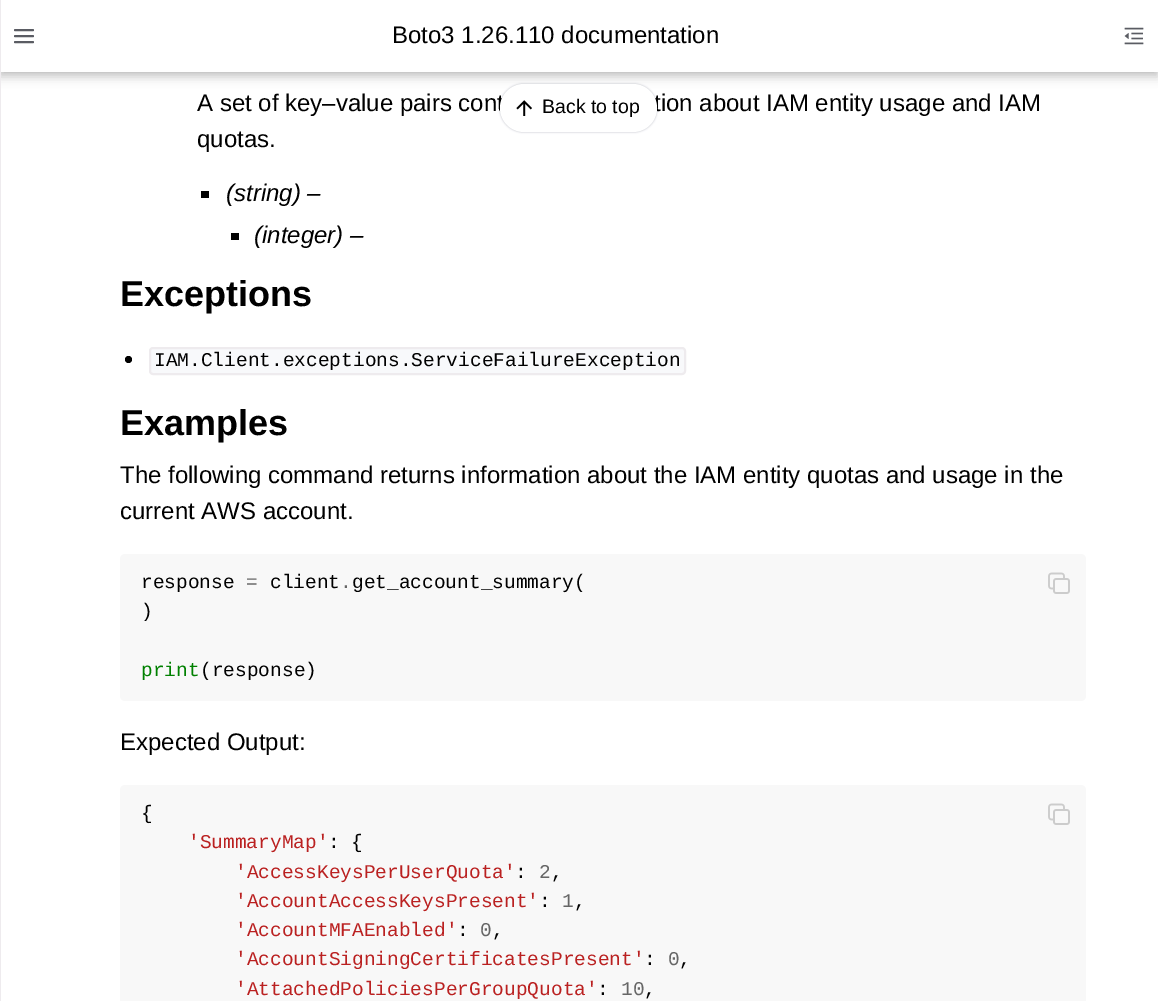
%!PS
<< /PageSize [1158 1001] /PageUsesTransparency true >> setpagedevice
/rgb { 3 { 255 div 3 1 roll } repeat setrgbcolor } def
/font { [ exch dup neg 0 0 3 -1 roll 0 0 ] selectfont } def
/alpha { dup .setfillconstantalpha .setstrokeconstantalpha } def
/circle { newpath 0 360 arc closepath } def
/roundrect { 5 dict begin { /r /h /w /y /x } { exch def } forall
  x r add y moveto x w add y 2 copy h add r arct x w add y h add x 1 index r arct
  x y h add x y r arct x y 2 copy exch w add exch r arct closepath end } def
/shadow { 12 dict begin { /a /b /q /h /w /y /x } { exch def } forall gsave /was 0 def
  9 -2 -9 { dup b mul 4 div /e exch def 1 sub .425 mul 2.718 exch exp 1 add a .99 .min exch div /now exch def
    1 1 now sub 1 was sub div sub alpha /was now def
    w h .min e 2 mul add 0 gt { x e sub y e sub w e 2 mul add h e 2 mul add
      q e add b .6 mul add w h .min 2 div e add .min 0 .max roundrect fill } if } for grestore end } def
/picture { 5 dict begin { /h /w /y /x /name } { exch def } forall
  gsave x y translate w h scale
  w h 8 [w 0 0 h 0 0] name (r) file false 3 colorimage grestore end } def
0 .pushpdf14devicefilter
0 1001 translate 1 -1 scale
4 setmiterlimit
255 255 255 rgb
0 0 1158 1001 rectfill
0 0 0 rgb
0 5 1158 72 0 5 0.2 shadow
0 0 1158 72 0 2.5 0.1 shadow
238 235 238 rgb
0 0 1 1001 rectfill
255 255 255 rgb
1 0 1157 72 rectfill
90 92 99 rgb
2 setlinewidth
1 setlinecap
1 setlinejoin
15 36 moveto 33 36 lineto 15 30 moveto 33 30 lineto 15 42 moveto 33 42 lineto stroke
(img/1.rgb) 1124 27 20 18 picture
0 0 0 rgb
201 191 8 7 rectfill
231 233 8 7 rectfill
128.5 359.5 3.5 circle fill
248 249 251 rgb
150 348 535 26 3 roundrect gsave fill grestore
238 235 238 rgb
0 setlinecap
0 setlinejoin
stroke
248 248 248 rgb
120 554 966 147 5 roundrect fill
(img/2.rgb) 1048 572 22 22 picture
120 785 966 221 5 roundrect fill
(img/2.rgb) 1048 803 22 22 picture
107 114 128 rgb
500 84 157 48 24 1 0.5 shadow
/LiberationSans-Regular 24 font
0 0 0 rgb
[
  [(Boto3 1.26.110 documentation) 392 43]
  [(A set of key–value pairs cont) 197 111]
  [(tion about IAM entity usage and IAM) 654 111]
  [(quotas.) 197 147]
] { aload pop moveto show } forall
/LiberationSans-Italic 24 font
226 201 moveto (\(string\) –) show
254 243 moveto (\(integer\) –) show
/LiberationSans-Bold 36 font
120 306 moveto (Exceptions) show
/LiberationMono-Regular 19.5 font
154 366 moveto (IAM.Client.exceptions.ServiceFailureException) show
/LiberationSans-Bold 36 font
120 435 moveto (Examples) show
/LiberationSans-Regular 24 font
120 483 moveto (The following command returns information about the IAM entity quotas and usage in the) show
120 519 moveto (current AWS account.) show
/LiberationMono-Regular 19.5 font
141 588 moveto (response) show
102 102 102 rgb
246 588 moveto (=) show
0 0 0 rgb
270 588 moveto (client get_account_summary\() show
102 102 102 rgb
340 588 moveto (.) show
0 0 0 rgb
141 617 moveto (\)) show
0 128 0 rgb
141 676 moveto (print) show
0 0 0 rgb
200 676 moveto (\(response\)) show
/LiberationSans-Regular 24 font
120 750 moveto (Expected Output:) show
/LiberationMono-Regular 19.5 font
141 819 moveto ({) show
186 33 33 rgb
188 848 moveto ('SummaryMap') show
0 0 0 rgb
328 848 moveto (: {) show
186 33 33 rgb
235 878 moveto ('AccessKeysPerUserQuota') show
0 0 0 rgb
515 878 moveto (:) show
102 102 102 rgb
539 878 moveto (2) show
0 0 0 rgb
551 878 moveto (,) show
186 33 33 rgb
235 907 moveto ('AccountAccessKeysPresent') show
0 0 0 rgb
539 907 moveto (:) show
102 102 102 rgb
562 907 moveto (1) show
0 0 0 rgb
574 907 moveto (,) show
186 33 33 rgb
235 936 moveto ('AccountMFAEnabled') show
0 0 0 rgb
457 936 moveto (:) show
102 102 102 rgb
480 936 moveto (0) show
0 0 0 rgb
492 936 moveto (,) show
186 33 33 rgb
235 965 moveto ('AccountSigningCertificatesPresent') show
0 0 0 rgb
644 965 moveto (:) show
102 102 102 rgb
668 965 moveto (0) show
0 0 0 rgb
679 965 moveto (,) show
186 33 33 rgb
235 995 moveto ('AttachedPoliciesPerGroupQuota') show
0 0 0 rgb
597 995 moveto (:) show
102 102 102 rgb
621 995 moveto (10) show
0 0 0 rgb
644 995 moveto (,) show
255 255 255 rgb
500 84 157 48 24 roundrect fill
(img/3.rgb) 516 100 16 16 picture
/LiberationSans-Regular 19.5 font
0 0 0 rgb
542 113 moveto (Back to top) show
.poppdf14devicefilter showpage
